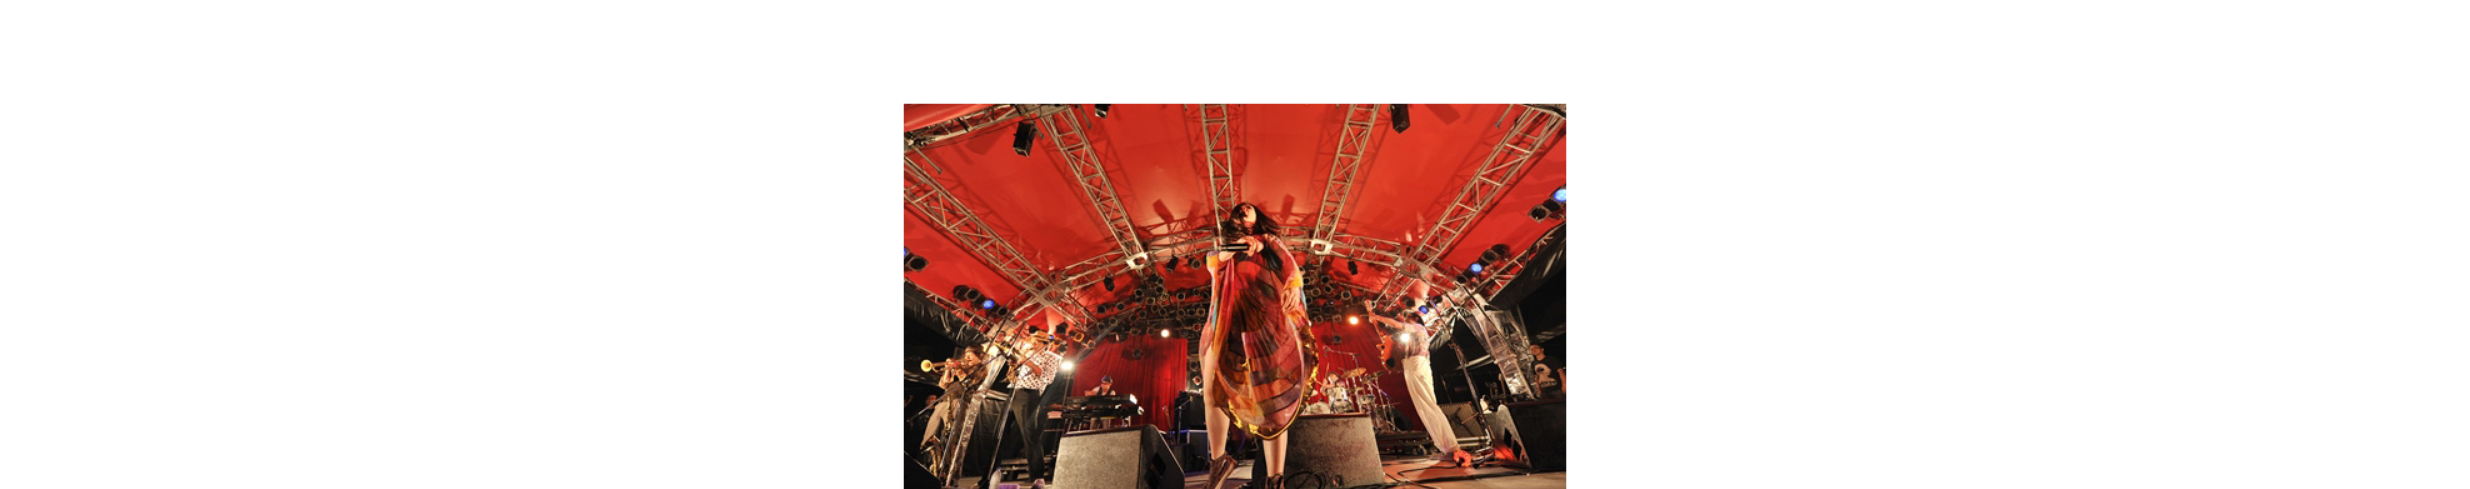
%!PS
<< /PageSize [2470 489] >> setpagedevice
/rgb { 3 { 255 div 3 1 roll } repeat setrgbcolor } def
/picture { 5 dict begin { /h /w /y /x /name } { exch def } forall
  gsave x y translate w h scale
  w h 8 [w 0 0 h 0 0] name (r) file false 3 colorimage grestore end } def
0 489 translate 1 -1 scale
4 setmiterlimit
255 255 255 rgb
0 0 2470 489 rectfill
(img/1.rgb) 903 102 664 387 picture
showpage
